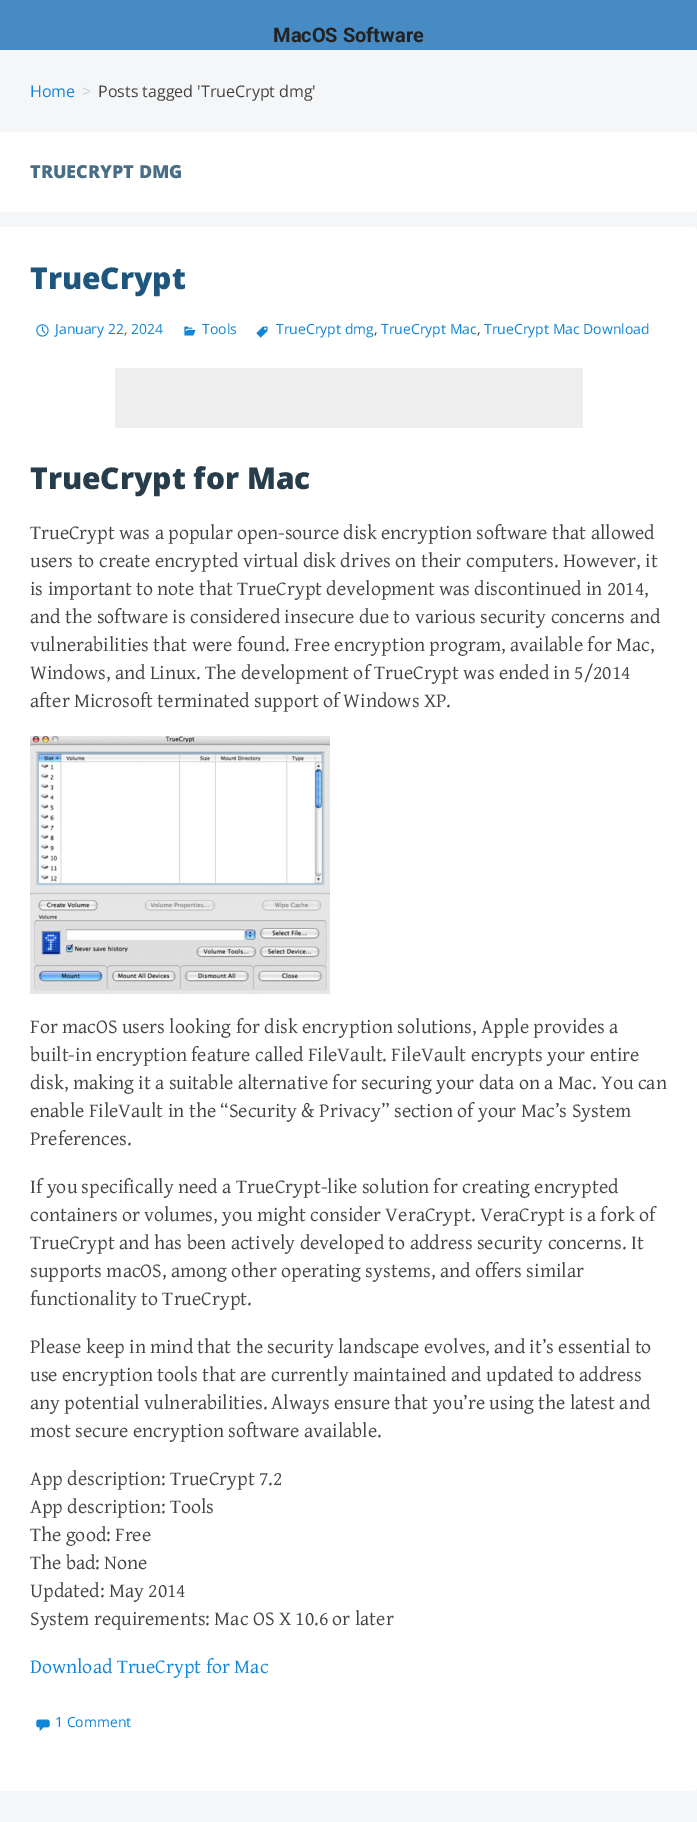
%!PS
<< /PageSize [697 1822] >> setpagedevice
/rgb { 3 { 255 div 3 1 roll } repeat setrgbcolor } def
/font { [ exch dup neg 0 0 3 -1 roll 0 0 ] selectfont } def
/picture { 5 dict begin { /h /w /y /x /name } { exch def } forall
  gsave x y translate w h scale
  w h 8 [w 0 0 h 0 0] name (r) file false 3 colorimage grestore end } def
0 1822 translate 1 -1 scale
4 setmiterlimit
245 246 247 rgb
0 0 697 1822 rectfill
70 139 196 rgb
0 0 697 50 rectfill
255 255 255 rgb
0 132 moveto 692 132 lineto 695 132 697 134 697 137 curveto 697 207 lineto 697 210 695 212 692 212 curveto 0 212 lineto closepath fill
0 227 moveto 692 227 lineto 695 227 697 229 697 232 curveto 697 1786 lineto 697 1789 695 1791 692 1791 curveto 0 1791 lineto closepath fill
(img/1.rgb) 36 324 13 13 picture
(img/2.rgb) 184 326 12 10 picture
(img/3.rgb) 256 326 12 12 picture
238 238 238 rgb
115 368 468 60 rectfill
(img/4.rgb) 30 736 300 258 picture
(img/5.rgb) 36 1719 14 13 picture
/Roboto-Bold 20 font
34 34 34 rgb
273 42 moveto (MacOS Software) show
/OpenSans-Regular 16 font
17 133 215 rgb
30 97 moveto (Home) show
204 205 206 rgb
82 97 moveto (>) show
68 68 68 rgb
98 97 moveto (Posts tagged 'TrueCrypt dmg') show
/OpenSans-ExtraBold 18 font
72 109 135 rgb
30 178 moveto (TRUECRYPT DMG) show
/OpenSans-ExtraBold 30 font
31 86 125 rgb
30 289 moveto (TrueCrypt) show
/OpenSans-Regular 14 font
17 133 215 rgb
[
  [(January 22, 2024) 55 334]
  [(Tools) 202 334]
  [(TrueCrypt dmg) 276 334]
] { aload pop moveto show } forall
68 68 68 rgb
374 334 moveto (,) show
17 133 215 rgb
381 334 moveto (TrueCrypt Mac) show
68 68 68 rgb
477 334 moveto (,) show
17 133 215 rgb
484 334 moveto (TrueCrypt Mac Download) show
/OpenSans-ExtraBold 30 font
40 61 75 rgb
30 489 moveto (TrueCrypt for Mac) show
/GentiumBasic-Regular 20 font
68 68 68 rgb
[
  [(TrueCrypt was a popular open-source disk encryption software that allowed) 30 539]
  [(users to create encrypted virtual disk drives on their computers. However, it) 30 567]
  [(is important to note that TrueCrypt development was discontinued in 2014,) 30 595]
  [(and the software is considered insecure due to various security concerns and) 30 623]
  [(vulnerabilities that were found. Free encryption program, available for Mac,) 30 651]
  [(Windows, and Linux. The development of TrueCrypt was ended in 5/2014) 30 679]
  [(after Microsoft terminated support of Windows XP.) 30 707]
  [(For macOS users looking for disk encryption solutions, Apple provides a) 30 1033]
  [(built-in encryption feature called FileVault. FileVault encrypts your entire) 30 1061]
  [(disk, making it a suitable alternative for securing your data on a Mac. You can) 30 1089]
  [(enable FileVault in the “Security & Privacy” section of your Mac’s System) 30 1117]
  [(Preferences.) 30 1145]
  [(If you specifically need a TrueCrypt-like solution for creating encrypted) 30 1193]
  [(containers or volumes, you might consider VeraCrypt. VeraCrypt is a fork of) 30 1221]
  [(TrueCrypt and has been actively developed to address security concerns. It) 30 1249]
  [(supports macOS, among other operating systems, and offers similar) 30 1277]
  [(functionality to TrueCrypt.) 30 1305]
  [(Please keep in mind that the security landscape evolves, and it’s essential to) 30 1353]
  [(use encryption tools that are currently maintained and updated to address) 30 1381]
  [(any potential vulnerabilities. Always ensure that you’re using the latest and) 30 1409]
  [(most secure encryption software available.) 30 1437]
  [(App description: TrueCrypt 7.2) 30 1485]
  [(App description: Tools) 30 1513]
  [(The good: Free) 30 1541]
  [(The bad: None) 30 1569]
  [(Updated: May 2014) 30 1597]
  [(System requirements: Mac OS X 10.6 or later) 30 1625]
] { aload pop moveto show } forall
17 133 215 rgb
30 1673 moveto (Download TrueCrypt for Mac) show
/OpenSans-Regular 14 font
55 1727 moveto (1 Comment) show
showpage
